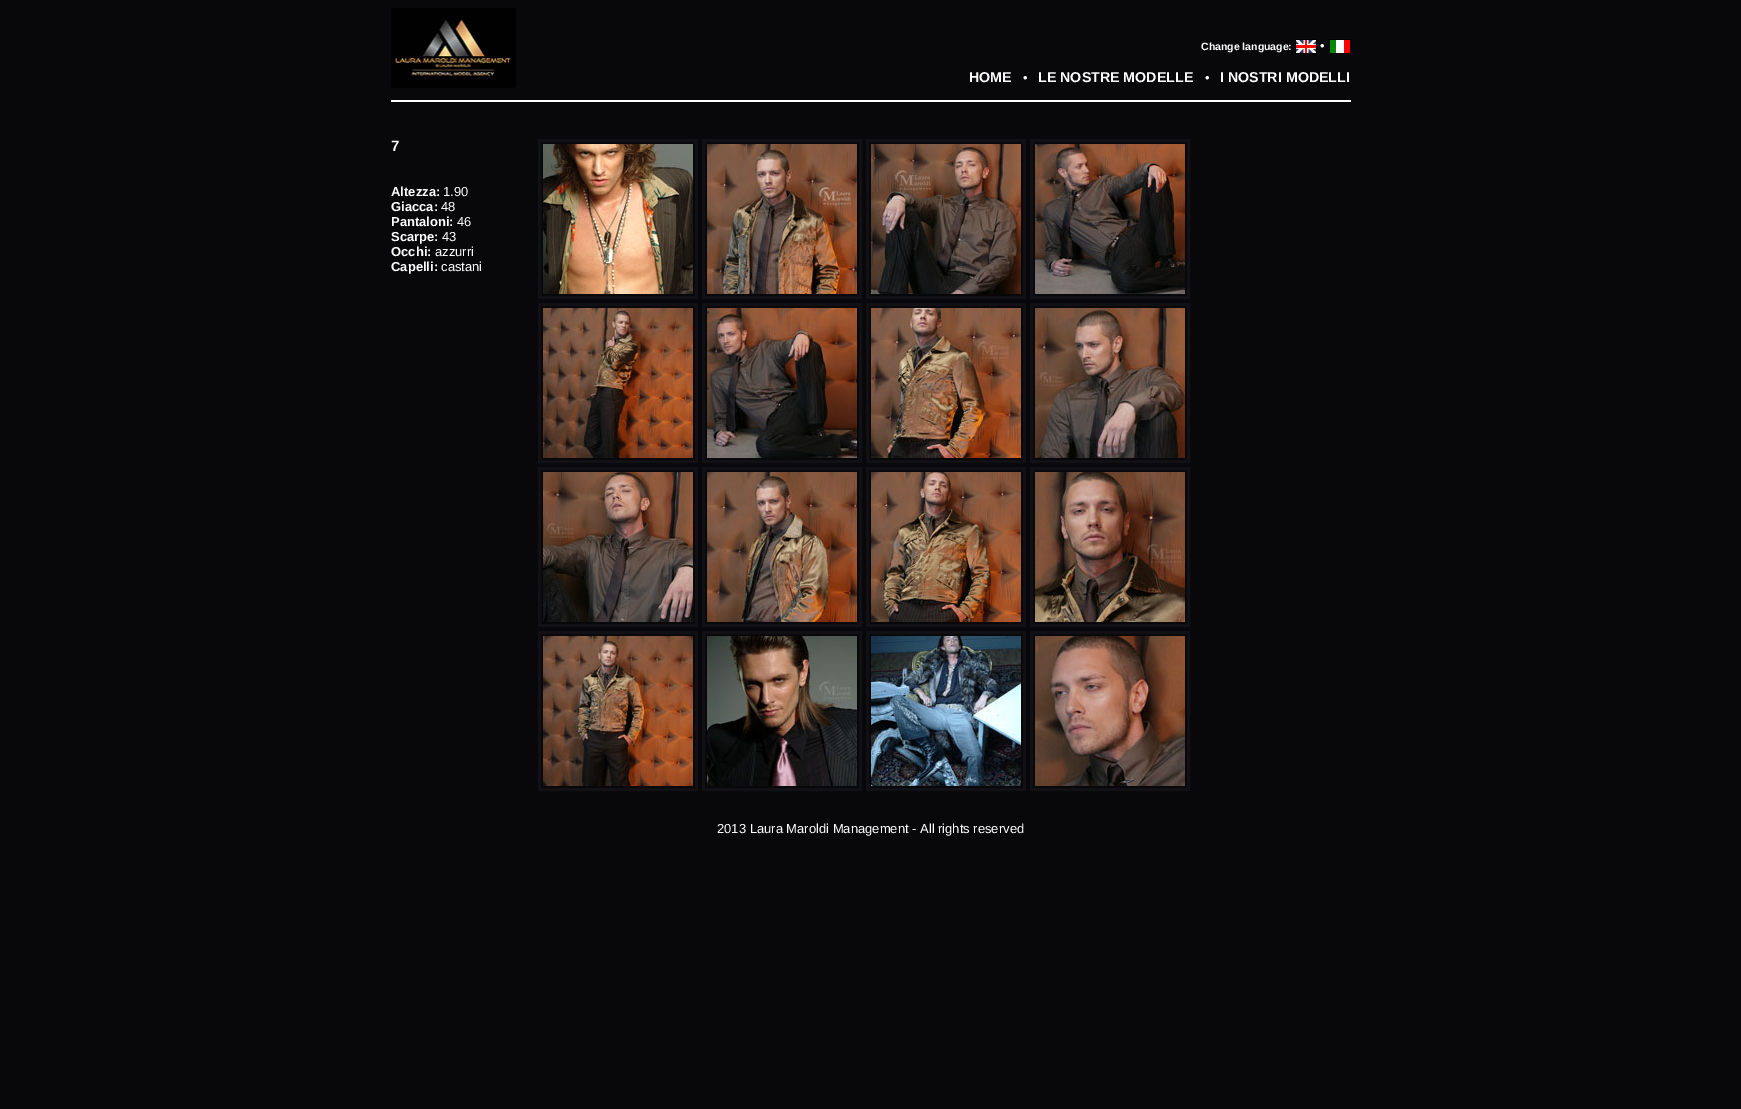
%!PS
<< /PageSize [1741 1109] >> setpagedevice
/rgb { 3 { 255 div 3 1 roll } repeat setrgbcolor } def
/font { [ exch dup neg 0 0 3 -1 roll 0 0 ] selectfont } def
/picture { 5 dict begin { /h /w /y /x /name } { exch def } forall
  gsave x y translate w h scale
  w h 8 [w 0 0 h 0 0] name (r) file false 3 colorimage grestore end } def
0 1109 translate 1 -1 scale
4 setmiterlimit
8 8 10 rgb
0 0 1741 1109 rectfill
(img/1.rgb) 391 8 125 80 picture
(img/2.rgb) 1295 39 22 15 picture
(img/3.rgb) 1329 39 22 15 picture
255 255 255 rgb
391 100 960 2 rectfill
17 16 21 rgb
3 setlinewidth
539.5 140.5 157 157 rectstroke
703.5 140.5 157 157 rectstroke
867.5 140.5 157 157 rectstroke
1031.5 140.5 157 157 rectstroke
(img/4.rgb) 543 144 150 150 picture
(img/5.rgb) 707 144 150 150 picture
(img/6.rgb) 871 144 150 150 picture
(img/7.rgb) 1035 144 150 150 picture
539.5 304.5 157 157 rectstroke
703.5 304.5 157 157 rectstroke
867.5 304.5 157 157 rectstroke
1031.5 304.5 157 157 rectstroke
(img/8.rgb) 543 308 150 150 picture
(img/9.rgb) 707 308 150 150 picture
(img/10.rgb) 871 308 150 150 picture
(img/11.rgb) 1035 308 150 150 picture
539.5 468.5 157 157 rectstroke
703.5 468.5 157 157 rectstroke
867.5 468.5 157 157 rectstroke
1031.5 468.5 157 157 rectstroke
(img/12.rgb) 543 472 150 150 picture
(img/13.rgb) 707 472 150 150 picture
(img/14.rgb) 871 472 150 150 picture
(img/15.rgb) 1035 472 150 150 picture
539.5 632.5 157 157 rectstroke
703.5 632.5 157 157 rectstroke
867.5 632.5 157 157 rectstroke
1031.5 632.5 157 157 rectstroke
(img/16.rgb) 543 636 150 150 picture
(img/17.rgb) 707 636 150 150 picture
(img/18.rgb) 871 636 150 150 picture
(img/19.rgb) 1035 636 150 150 picture
/LiberationSans-Bold 10.5 font
255 255 255 rgb
1201 50 moveto (Change language:) show
/LiberationSans-Regular 13 font
1320 50 moveto (•) show
/LiberationSans-Bold 14.25 font
969 82 moveto (HOME) show
/LiberationSans-Regular 13 font
1023 82 moveto (•) show
/LiberationSans-Bold 14.25 font
1038 82 moveto (LE NOSTRE MODELLE) show
/LiberationSans-Regular 13 font
1205 82 moveto (•) show
/LiberationSans-Bold 14.25 font
1220 82 moveto (I NOSTRI MODELLI) show
/LiberationSans-Bold 15 font
391 151 moveto (7) show
/LiberationSans-Bold 13 font
391 196 moveto (Altezza:) show
/LiberationSans-Regular 13 font
443 196 moveto (1.90) show
/LiberationSans-Bold 13 font
391 211 moveto (Giacca:) show
/LiberationSans-Regular 13 font
441 211 moveto (48) show
/LiberationSans-Bold 13 font
391 226 moveto (Pantaloni:) show
/LiberationSans-Regular 13 font
457 226 moveto (46) show
/LiberationSans-Bold 13 font
391 241 moveto (Scarpe:) show
/LiberationSans-Regular 13 font
442 241 moveto (43) show
/LiberationSans-Bold 13 font
391 256 moveto (Occhi:) show
/LiberationSans-Regular 13 font
435 256 moveto (azzurri) show
/LiberationSans-Bold 13 font
391 271 moveto (Capelli:) show
/LiberationSans-Regular 13 font
441 271 moveto (castani) show
717 833 moveto (2013 Laura Maroldi Management - All rights reserved) show
showpage
